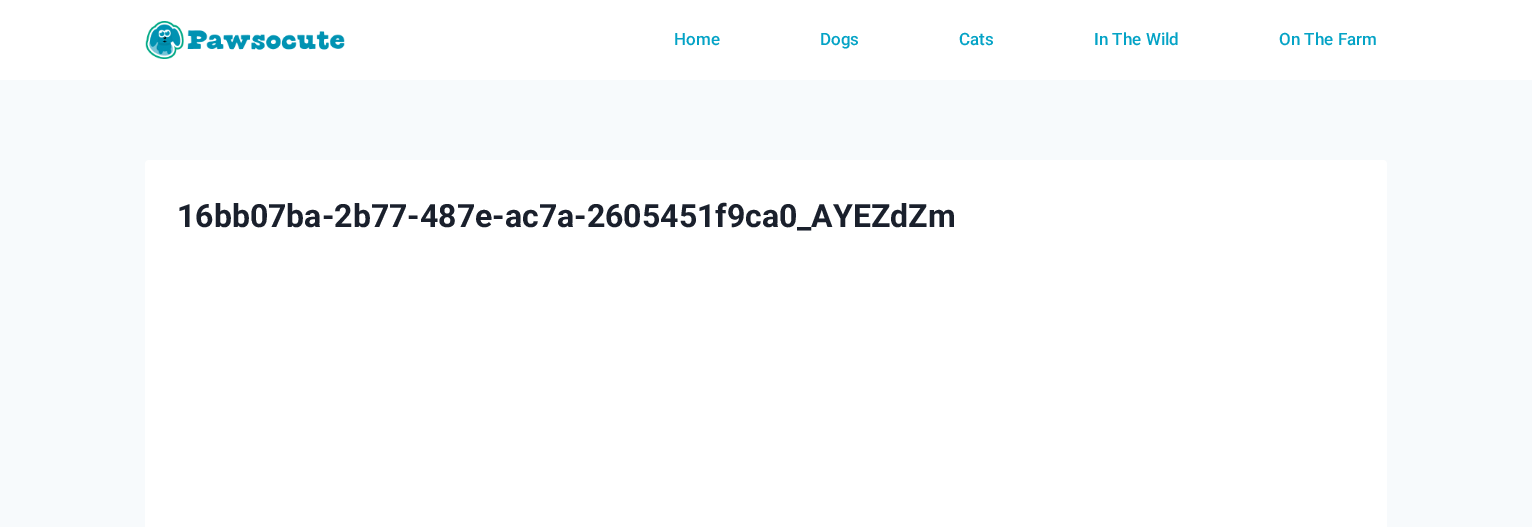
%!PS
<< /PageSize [1532 527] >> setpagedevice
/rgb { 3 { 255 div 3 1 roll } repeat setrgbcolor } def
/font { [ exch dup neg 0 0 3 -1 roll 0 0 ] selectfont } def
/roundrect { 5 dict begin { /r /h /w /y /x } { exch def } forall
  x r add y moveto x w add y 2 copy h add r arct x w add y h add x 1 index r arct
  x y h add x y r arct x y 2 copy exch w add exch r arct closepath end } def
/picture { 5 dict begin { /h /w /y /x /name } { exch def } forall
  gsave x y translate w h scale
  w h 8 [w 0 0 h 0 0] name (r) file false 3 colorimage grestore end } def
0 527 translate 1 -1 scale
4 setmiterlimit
247 250 252 rgb
0 0 1532 527 rectfill
255 255 255 rgb
0 0 1532 80 rectfill
(img/1.rgb) 145 21 200 38 picture
145 160 1242 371 4 roundrect fill
/Roboto-Medium 17 font
4 163 198 rgb
[
  [(Home) 674 45]
  [(Dogs) 820 45]
  [(Cats) 959 45]
  [(In The Wild) 1094 45]
  [(On The Farm) 1279 45]
] { aload pop moveto show } forall
/Roboto-Bold 32 font
26 32 44 rgb
177 227 moveto (16bb07ba-2b77-487e-ac7a-2605451f9ca0_AYEZdZm) show
showpage
